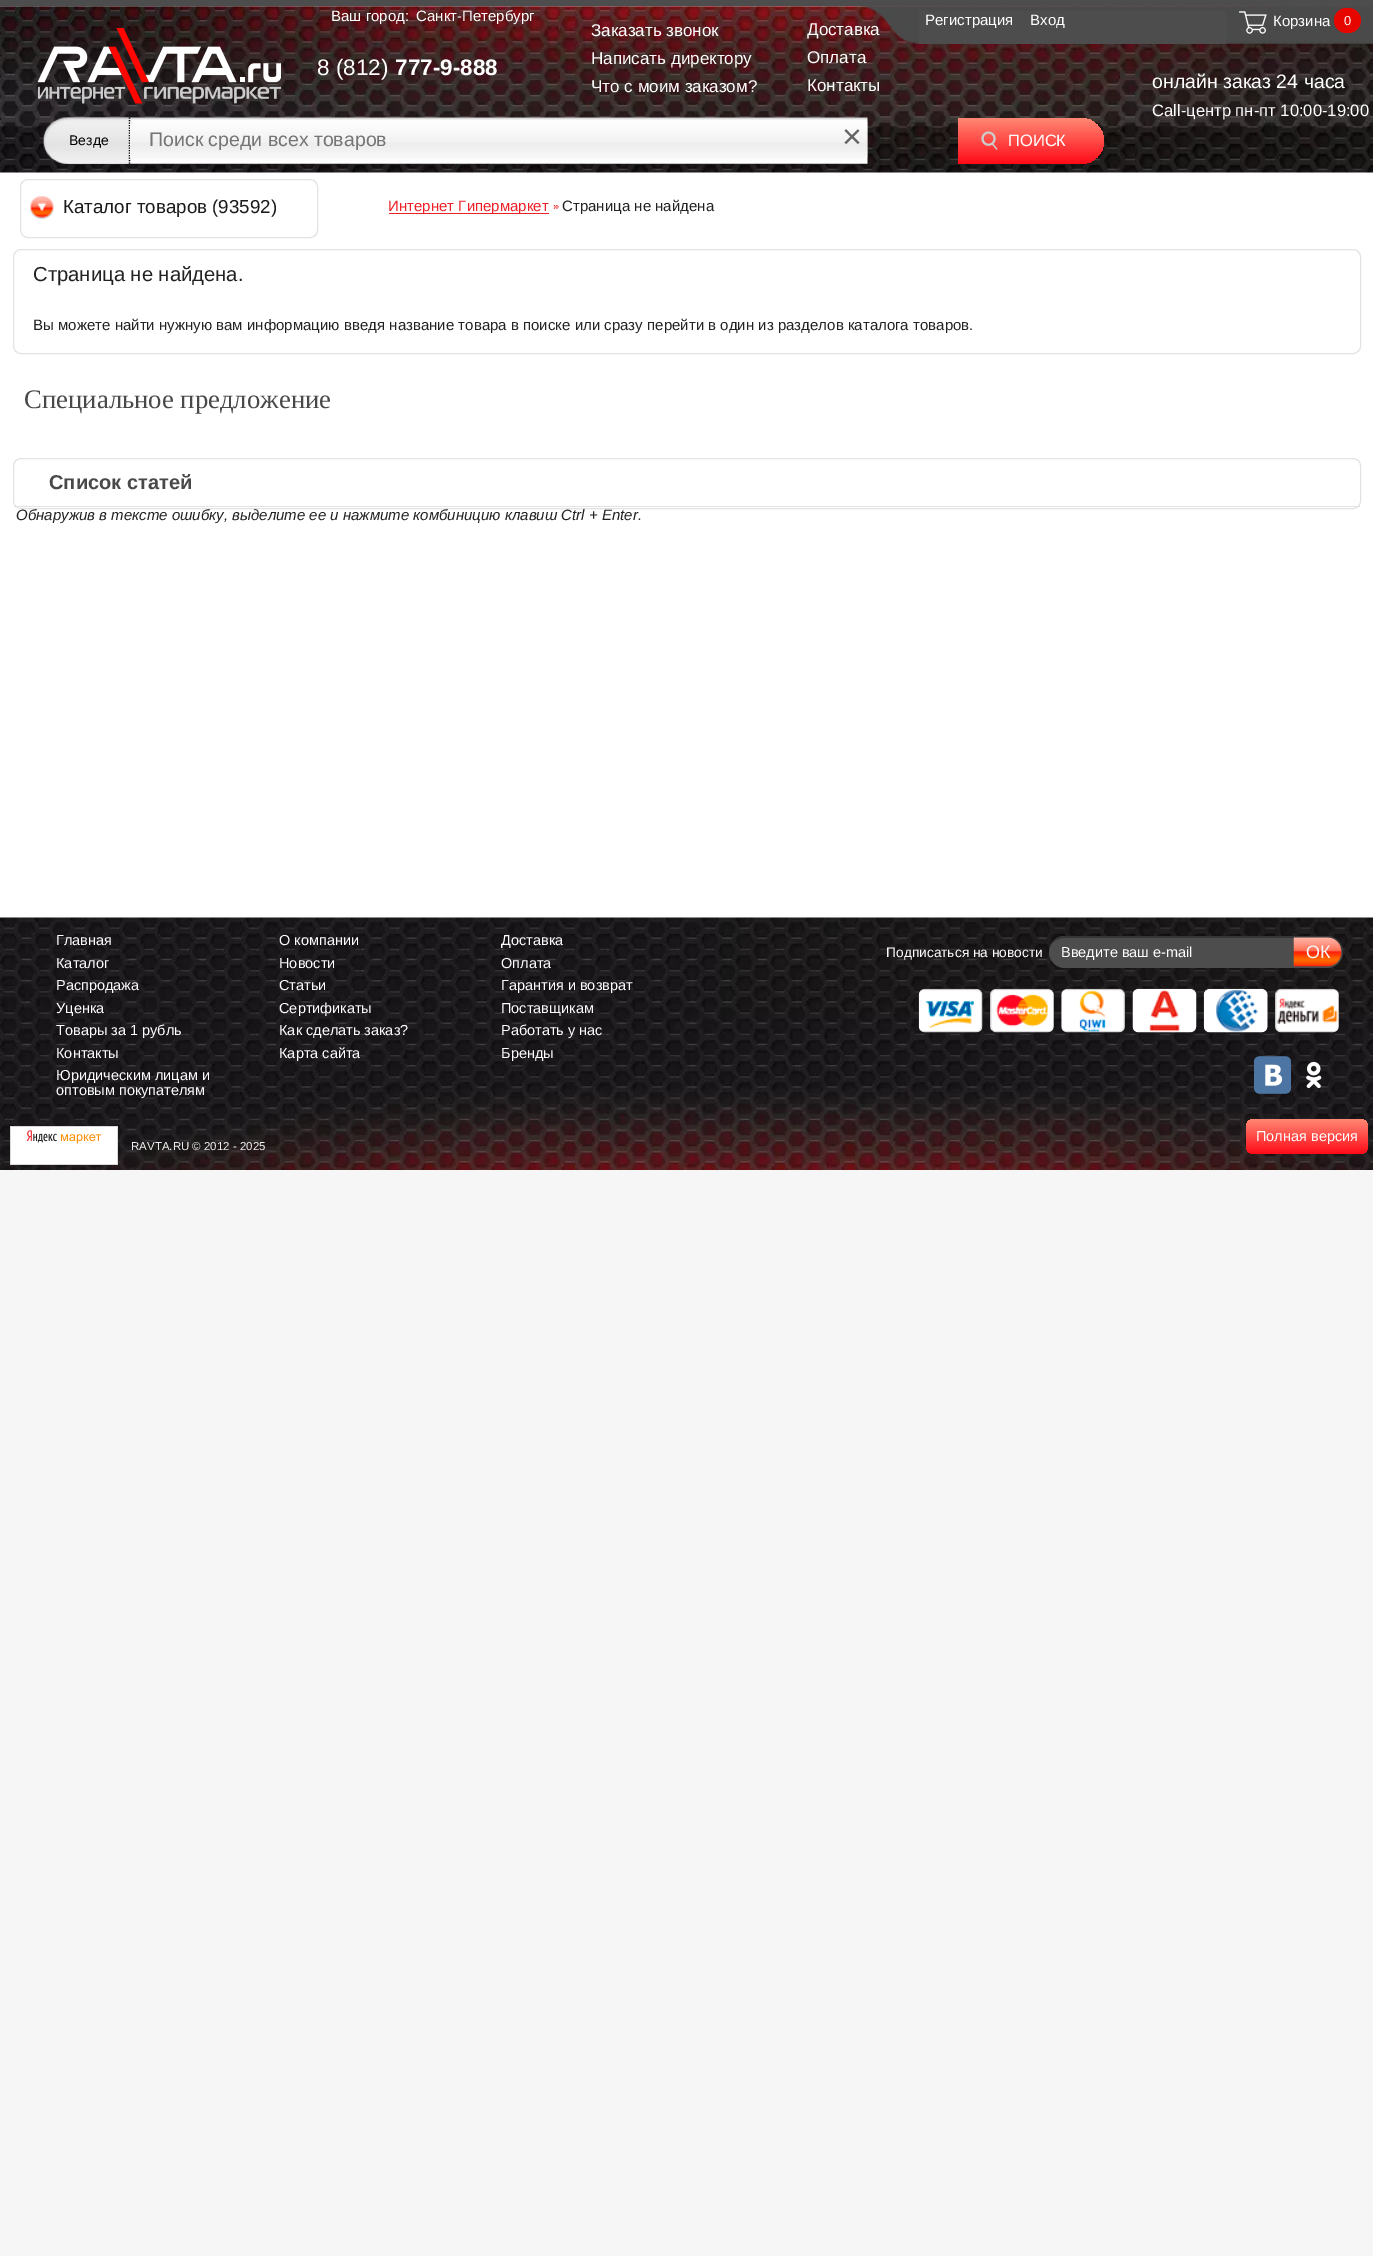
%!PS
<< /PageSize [1373 2256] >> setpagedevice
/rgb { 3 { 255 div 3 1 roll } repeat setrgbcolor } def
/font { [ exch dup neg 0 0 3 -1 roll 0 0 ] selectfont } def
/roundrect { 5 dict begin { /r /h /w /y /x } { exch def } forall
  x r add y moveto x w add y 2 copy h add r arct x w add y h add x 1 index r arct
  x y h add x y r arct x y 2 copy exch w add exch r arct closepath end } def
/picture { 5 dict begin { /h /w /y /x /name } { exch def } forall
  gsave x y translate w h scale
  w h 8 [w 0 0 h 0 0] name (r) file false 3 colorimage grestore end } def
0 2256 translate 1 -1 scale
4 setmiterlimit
246 246 246 rgb
0 0 1373 2256 rectfill
255 255 255 rgb
0 0 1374 1170 10 roundrect fill
(img/1.rgb) 0 6 1373 167 picture
77 77 78 rgb
0 0 1373 6 rectfill
(img/2.rgb) 862 6 511 38 picture
77 77 77 rgb
919 11 307 33 rectfill
(img/3.rgb) 1239 11 28 23 picture
231 5 0 rgb
1334 8 27 25 12.5 roundrect fill
(img/4.rgb) 38 28 243 76 picture
(img/5.rgb) 43 117 825 47 picture
(img/6.rgb) 43 117 87 47 picture
0 0 0 rgb
1.2 setlinewidth
[1.25 1.25] 0 setdash
129.5 117.5 moveto 129.5 164 lineto stroke
(img/7.rgb) 130 122 738 36 picture
gsave 958.5 118 moveto 1081 118 lineto 1093.5 118 1104 128.5 1104 141 curveto 1104 153.5 1093.5 164 1081 164 curveto 958.5 164 lineto 958 164 958 164 958 163.5 curveto 958 118.5 lineto 958 118 958 118 958.5 118 curveto closepath clip newpath
<< /ShadingType 2 /ColorSpace /DeviceRGB /Coords [1031 118 1031 164] /Extend [true true] /Function << /FunctionType 2 /Domain [0 1] /C0 [1 0.533 0.451] /C1 [1 0.039 0.09] /N 1 >> >> shfill grestore
(img/8.rgb) 981 131 17 19 picture
227 227 227 rgb
1 setlinewidth
[] 0 setdash
20.5 179.5 297 58 7.5 roundrect stroke
(img/9.rgb) 30 196 24 23 picture
237 32 39 rgb
389 213 160 1 rectfill
(img/10.rgb) 553 205 6 4 picture
227 227 227 rgb
13.5 249.5 1347 104 7.5 roundrect stroke
13.5 458.5 1347 50 7.5 roundrect stroke
14 506 1346 1 rectfill
(img/11.rgb) 0 917 1373 253 picture
77 77 77 rgb
1049 936 294 32 16 roundrect fill
54 54 54 rgb
1064 938 moveto 1327 938 lineto 1336 938 1342 944 1342 953 curveto 1342 956 1341 959 1340 961 curveto 1342 959 1343 955 1343 952 curveto 1343 943 1336 936 1327 936 curveto 1065 936 lineto 1056 936 1049 943 1049 952 curveto 1049 944 1056 938 1064 938 curveto closepath fill
(img/12.rgb) 1293 937 49 30 picture
(img/13.rgb) 918 988 65 45 picture
(img/14.rgb) 990 988 64 45 picture
(img/15.rgb) 1061 988 64 45 picture
(img/16.rgb) 1132 988 65 45 picture
(img/17.rgb) 1203 988 65 45 picture
(img/18.rgb) 1275 988 64 45 picture
(img/19.rgb) 1254 1056 37 38 picture
(img/20.rgb) 1306 1061 16 28 picture
gsave 1246 1119 122 35 8 roundrect clip newpath
<< /ShadingType 2 /ColorSpace /DeviceRGB /Coords [1307 1119 1307 1154] /Extend [true true] /Function << /FunctionType 2 /Domain [0 1] /C0 [1 0.533 0.451] /C1 [1 0.039 0.09] /N 1 >> >> shfill grestore
(img/21.rgb) 10 1126 108 39 picture
/LiberationSans-Regular 15.03 font
255 255 255 rgb
[
  [(Ваш город:) 331 21]
  [(Санкт-Петербург) 416 21]
  [(Регистрация) 925 25]
  [(Вход) 1030 25]
  [(Корзина) 1273 26]
] { aload pop moveto show } forall
/LiberationSans-Regular 13 font
1344 25 moveto (0) show
/LiberationSans-Regular 22.5 font
317 75 moveto (8 \(812\)) show
/LiberationSans-Bold 22.5 font
395 75 moveto (777-9-888) show
/LiberationSans-Regular 17 font
[
  [(Заказать звонок) 591 36]
  [(Написать директору) 591 64]
  [(Что с моим заказом?) 591 92]
  [(Доставка) 807 35]
  [(Оплата) 807 63]
  [(Контакты) 807 91]
] { aload pop moveto show } forall
/LiberationSans-Regular 14 font
0 0 0 rgb
69 145 moveto (Везде) show
/LiberationSans-Regular 19.5 font
117 117 117 rgb
149 146 moveto (Поиск среди всех товаров) show
/LiberationSans-Regular 34 font
102 102 102 rgb
842 148 moveto (×) show
/LiberationSans-Regular 16.5 font
255 255 255 rgb
1008 146 moveto (ПОИСК) show
/LiberationSans-Regular 19.5 font
1152 88 moveto (онлайн заказ 24 часа) show
/LiberationSans-Regular 16.6 font
1152 116 moveto (Call-центр пн-пт 10:00-19:00) show
/LiberationSans-Regular 18.75 font
27 27 27 rgb
63 213 moveto (Каталог товаров \(93592\)) show
/LiberationSans-Regular 15.03 font
237 32 39 rgb
388 211 moveto (Интернет Гипермаркет) show
34 34 34 rgb
562 211 moveto (Страница не найдена) show
/LiberationSans-Regular 20.25 font
33 281 moveto (Страница не найдена.) show
/LiberationSans-Regular 15.03 font
33 330 moveto (Вы можете найти нужную вам информацию введя название товара в поиске или сразу перейти в один из разделов каталога товаров.) show
/LiberationSerif-Regular 26.75 font
73 73 73 rgb
24 408 moveto (Специальное предложение) show
/LiberationSans-Bold 20 font
49 489 moveto (Список статей) show
/LiberationSans-Italic 15 font
34 34 34 rgb
16 520 moveto (Обнаружив в тексте ошибку, выделите ее и нажмите комбиницию клавиш Ctrl + Enter.) show
/LiberationSans-Regular 14.5 font
255 255 255 rgb
[
  [(Главная) 56 945]
  [(О компании) 279 945]
  [(Доставка) 501 945]
  [(Каталог) 56 968]
  [(Новости) 279 968]
  [(Оплата) 501 968]
  [(Распродажа) 56 990]
  [(Статьи) 279 990]
  [(Гарантия и возврат) 501 990]
  [(Уценка) 56 1013]
  [(Сертификаты) 279 1013]
  [(Поставщикам) 501 1013]
  [(Товары за 1 рубль) 56 1035]
  [(Как сделать заказ?) 279 1035]
  [(Работать у нас) 501 1035]
  [(Контакты) 56 1058]
  [(Карта сайта) 279 1058]
  [(Бренды) 501 1058]
  [(Юридическим лицам и) 56 1080]
  [(оптовым покупателям) 56 1095]
] { aload pop moveto show } forall
/LiberationSans-Regular 13.75 font
886 957 moveto (Подписаться на новости) show
/LiberationSans-Regular 14.5 font
1061 957 moveto (Введите ваш e-mail) show
/LiberationSans-Regular 18 font
246 246 246 rgb
1306 958 moveto (ОК) show
/LiberationSans-Regular 14.5 font
255 255 255 rgb
1256 1141 moveto (Полная версия) show
/LiberationSans-Regular 11.5 font
238 238 238 rgb
131 1150 moveto (RAVTA.RU © 2012 - 2025) show
showpage
